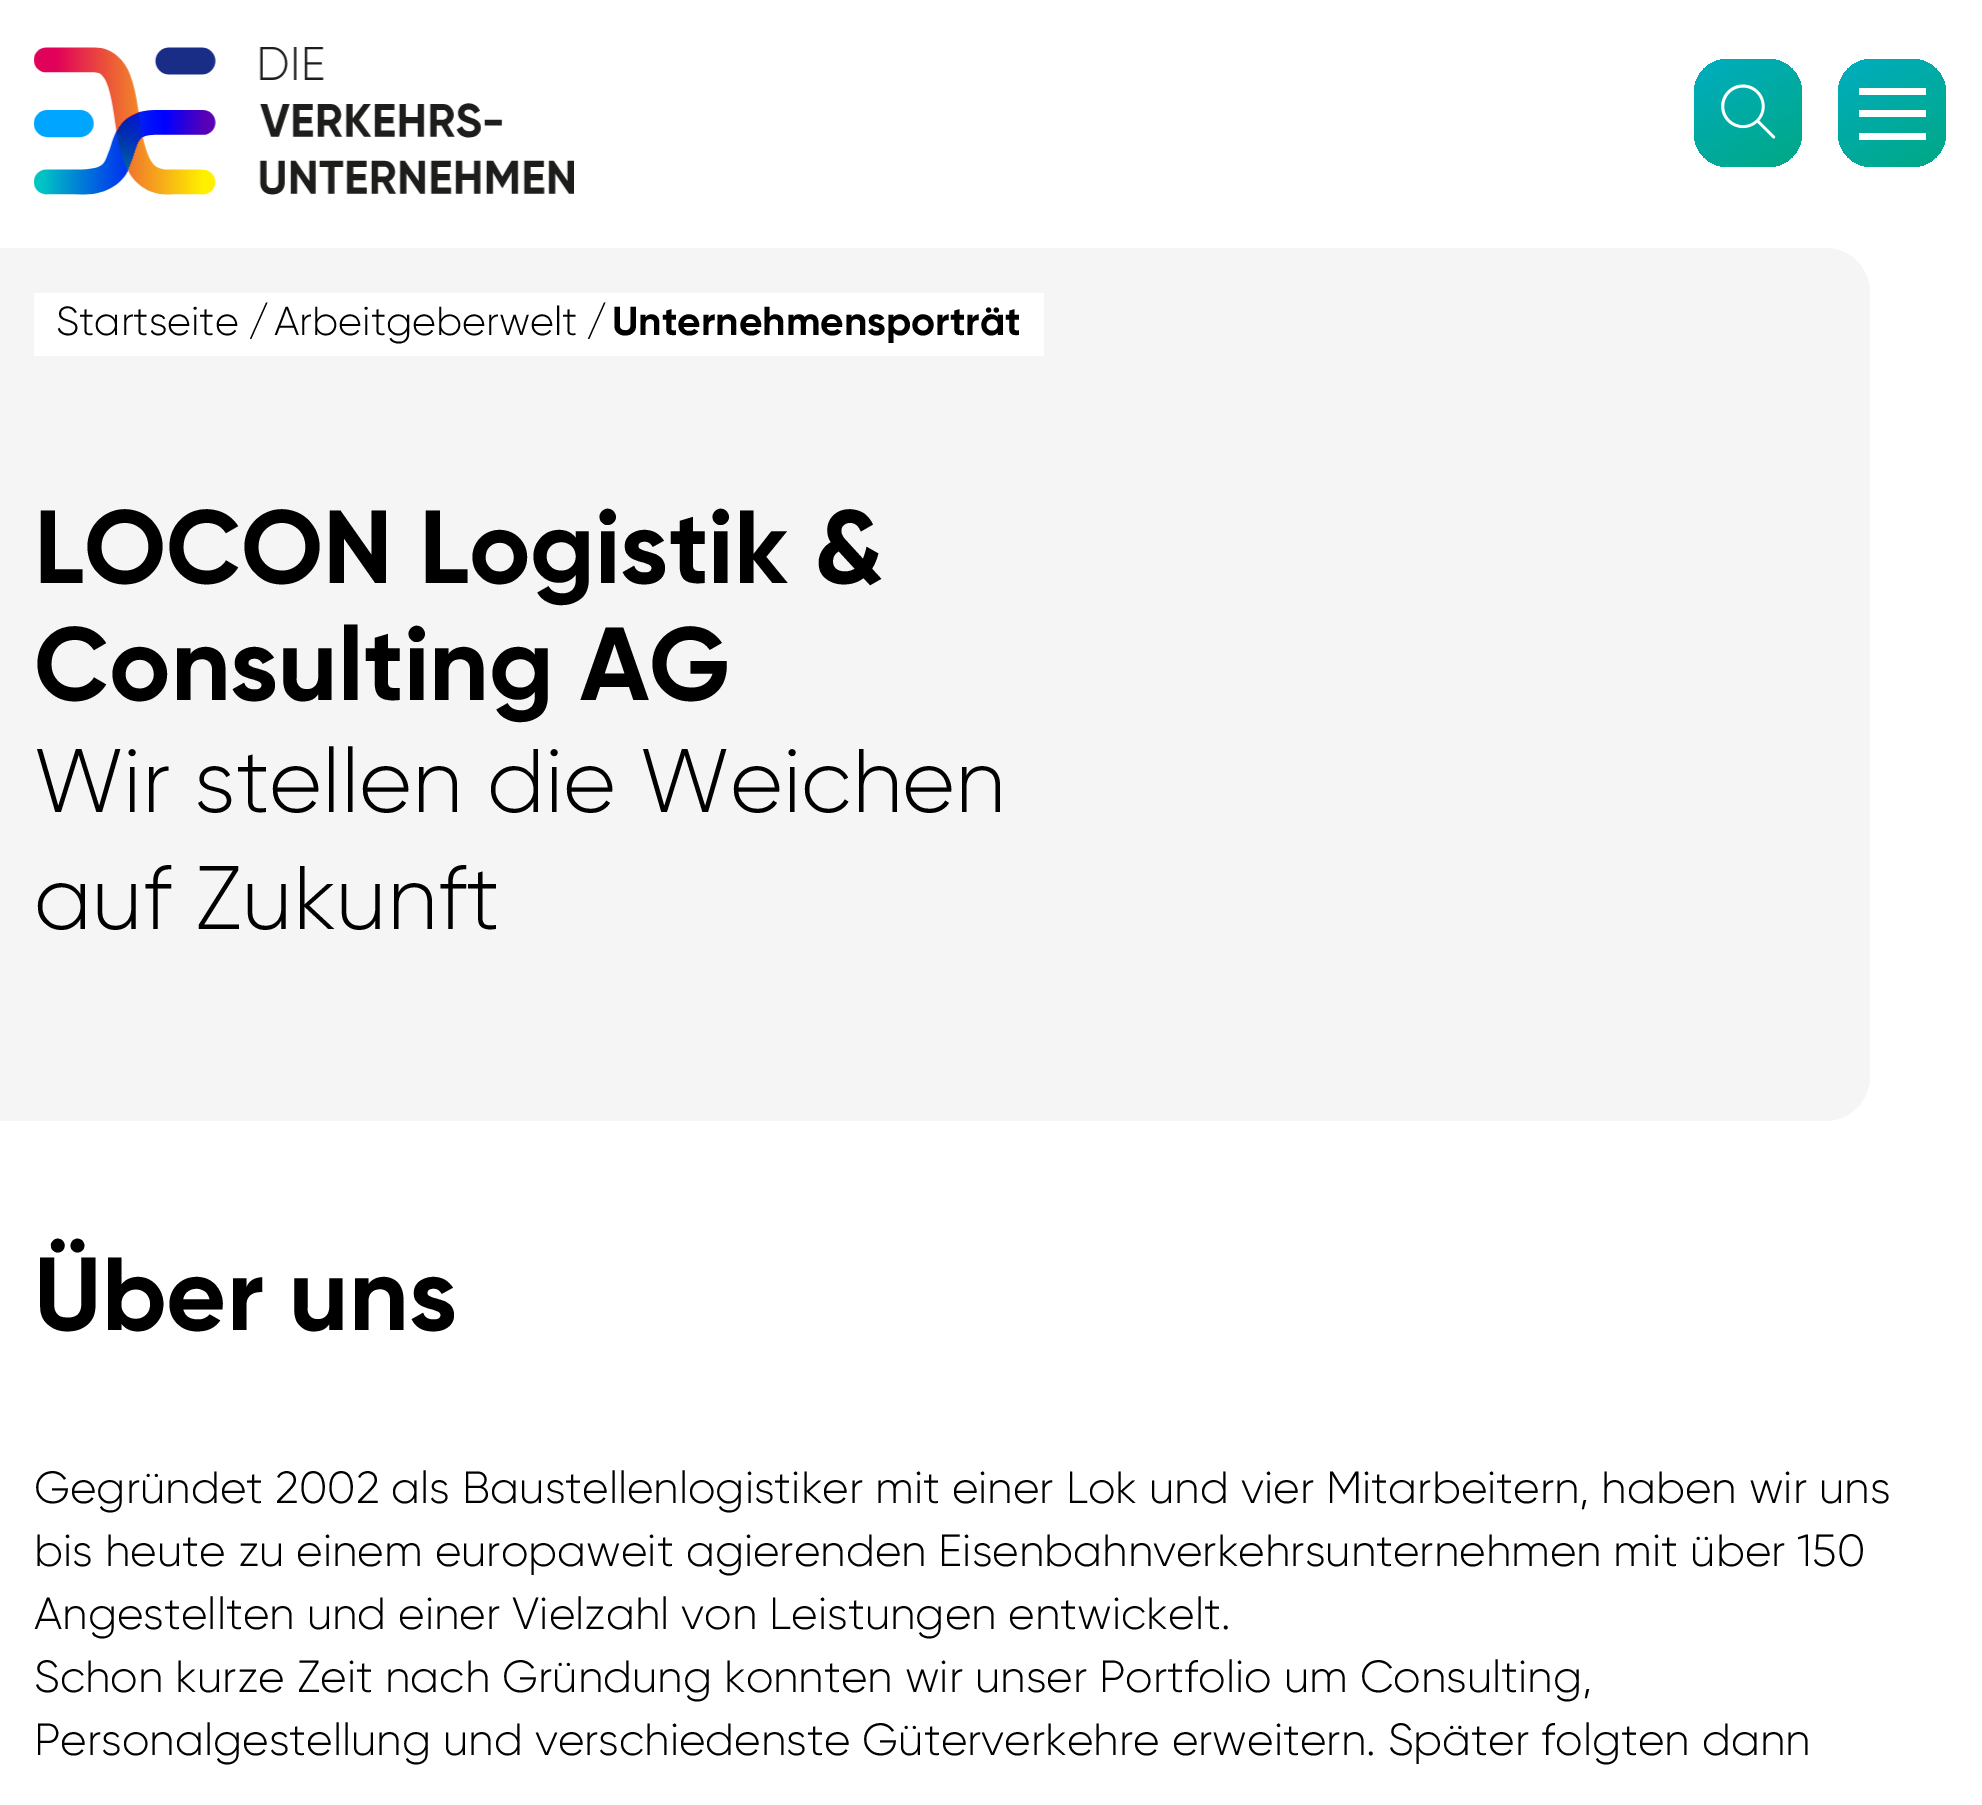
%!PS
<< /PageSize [1982 1805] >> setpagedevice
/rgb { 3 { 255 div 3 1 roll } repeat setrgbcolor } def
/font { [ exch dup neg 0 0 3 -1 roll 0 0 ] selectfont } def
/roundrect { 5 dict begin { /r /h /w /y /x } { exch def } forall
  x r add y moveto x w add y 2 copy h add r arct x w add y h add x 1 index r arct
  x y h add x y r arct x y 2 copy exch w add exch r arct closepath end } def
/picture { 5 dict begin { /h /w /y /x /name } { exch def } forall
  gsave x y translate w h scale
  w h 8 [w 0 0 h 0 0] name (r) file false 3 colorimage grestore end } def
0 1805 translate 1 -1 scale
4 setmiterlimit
255 255 255 rgb
0 0 1982 1805 rectfill
(img/1.rgb) 34 47 540 148 picture
gsave 1694 59 108 108 34 roundrect clip newpath
<< /ShadingType 2 /ColorSpace /DeviceRGB /Coords [1711 49 1785 176] /Extend [true true] /Function << /FunctionType 2 /Domain [0 1] /C0 [0 0.678 0.749] /C1 [0 0.659 0.518] /N 1 >> >> shfill grestore
(img/2.rgb) 1721 84 55 55 picture
gsave 1838 59 108 108 34 roundrect clip newpath
<< /ShadingType 2 /ColorSpace /DeviceRGB /Coords [1855 49 1929 176] /Extend [true true] /Function << /FunctionType 2 /Domain [0 1] /C0 [0 0.678 0.749] /C1 [0 0.659 0.518] /N 1 >> >> shfill grestore
[
  [1859 88 67 7 255 255 255]
  [1859 110 67 7 255 255 255]
  [1859 133 67 7 255 255 255]
] { aload pop rgb rectfill } forall
245 245 245 rgb
0 248 moveto 1825 248 lineto 1850 248 1870 268 1870 293 curveto 1870 1076 lineto 1870 1101 1850 1121 1825 1121 curveto 0 1121 lineto closepath fill
255 255 255 rgb
34 293 1010 63 rectfill
/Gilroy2-Regular 40.5 font
0 0 0 rgb
[
  [(Startseite) 56 335]
  [(/) 248 335]
  [(Arbeitgeberwelt) 274 335]
  [(/) 586 335]
] { aload pop moveto show } forall
/Gilroy-Regular 40.5 font
612 335 moveto (Unternehmensporträt) show
/Gilroy-Regular 103.5 font
34 583 moveto (LOCON Logistik &) show
34 700 moveto (Consulting AG) show
/Gilroy2-Regular 90 font
34 812 moveto (Wir stellen die Weichen) show
34 929 moveto (auf Zukunft) show
/Gilroy-Regular 103.5 font
34 1330 moveto (Über uns) show
/Gilroy2-Regular 45 font
[
  [(Gegründet 2002 als Baustellenlogistiker mit einer Lok und vier Mitarbeitern, haben wir uns) 34 1503]
  [(bis heute zu einem europaweit agierenden Eisenbahnverkehrsunternehmen mit über 150) 34 1566]
  [(Angestellten und einer Vielzahl von Leistungen entwickelt.) 34 1629]
  [(Schon kurze Zeit nach Gründung konnten wir unser Portfolio um Consulting,) 34 1692]
  [(Personalgestellung und verschiedenste Güterverkehre erweitern. Später folgten dann) 34 1755]
] { aload pop moveto show } forall
showpage
